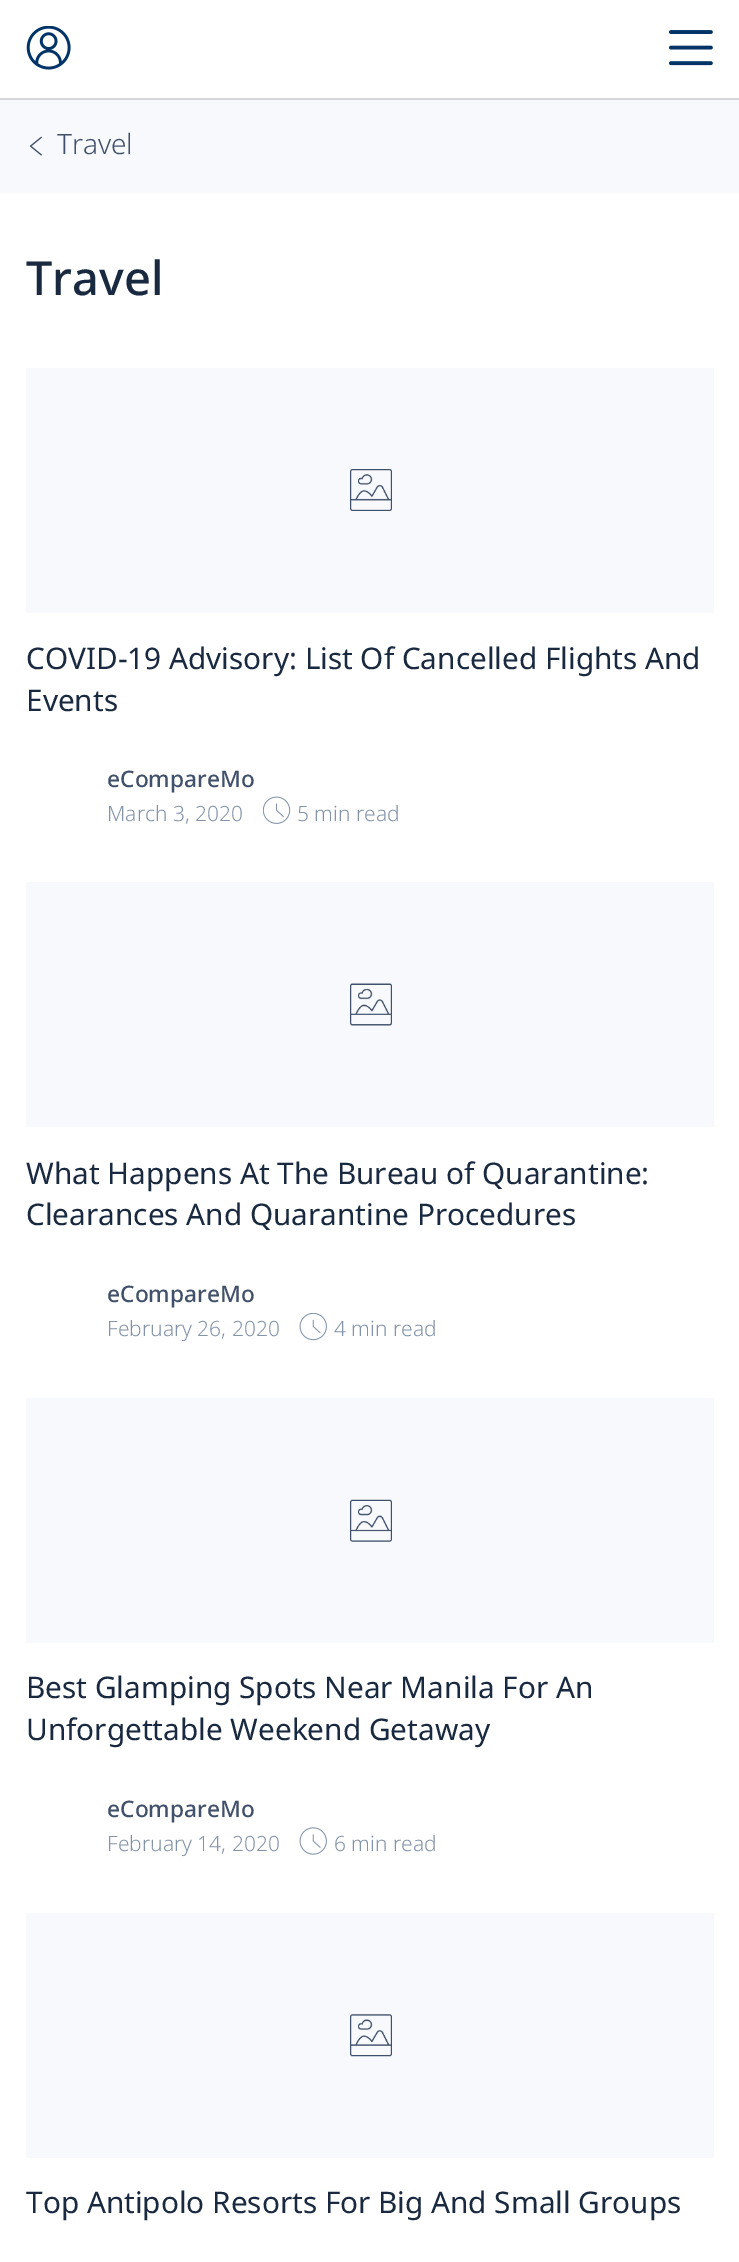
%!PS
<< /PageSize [739 2262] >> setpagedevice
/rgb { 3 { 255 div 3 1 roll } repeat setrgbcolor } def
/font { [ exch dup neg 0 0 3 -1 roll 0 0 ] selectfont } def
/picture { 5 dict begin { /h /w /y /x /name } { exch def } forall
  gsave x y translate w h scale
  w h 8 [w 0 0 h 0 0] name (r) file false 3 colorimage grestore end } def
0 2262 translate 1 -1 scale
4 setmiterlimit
255 255 255 rgb
0 0 739 2262 rectfill
212 214 217 rgb
0 98 739 2 rectfill
(img/1.rgb) 26 26 45 44 picture
(img/2.rgb) 669 30 44 36 picture
247 249 252 rgb
0 100 739 93 rectfill
(img/3.rgb) 29 136 13 20 picture
26 368 688 245 rectfill
(img/4.rgb) 350 469 42 42 picture
(img/5.rgb) 263 796 28 28 picture
26 882 688 245 rectfill
(img/6.rgb) 350 983 42 43 picture
(img/7.rgb) 299 1313 28 28 picture
26 1398 688 245 rectfill
(img/8.rgb) 350 1499 42 43 picture
(img/9.rgb) 299 1827 28 28 picture
26 1913 688 245 rectfill
(img/10.rgb) 350 2014 42 43 picture
/NotoSans-Light 28 font
66 81 107 rgb
57 154 moveto (Travel) show
/NotoSans-Medium 47 font
24 41 64 rgb
26 295 moveto (Travel) show
/NotoSans-Regular 29.75 font
26 669 moveto (COVID-19 Advisory: List Of Cancelled Flights And) show
26 711 moveto (Events) show
/NotoSans-Medium 22.75 font
66 81 107 rgb
107 787 moveto (eCompareMo) show
/NotoSans-Light 21 font
131 147 169 rgb
107 821 moveto (March 3, 2020) show
297 821 moveto (5 min read) show
/NotoSans-Regular 29.75 font
24 41 64 rgb
26 1184 moveto (What Happens At The Bureau of Quarantine:) show
26 1225 moveto (Clearances And Quarantine Procedures) show
/NotoSans-Medium 22.75 font
66 81 107 rgb
107 1302 moveto (eCompareMo) show
/NotoSans-Light 21 font
131 147 169 rgb
107 1336 moveto (February 26, 2020) show
334 1336 moveto (4 min read) show
/NotoSans-Regular 29.75 font
24 41 64 rgb
26 1698 moveto (Best Glamping Spots Near Manila For An) show
26 1740 moveto (Unforgettable Weekend Getaway) show
/NotoSans-Medium 22.75 font
66 81 107 rgb
107 1817 moveto (eCompareMo) show
/NotoSans-Light 21 font
131 147 169 rgb
107 1851 moveto (February 14, 2020) show
334 1851 moveto (6 min read) show
/NotoSans-Regular 29.75 font
24 41 64 rgb
26 2213 moveto (Top Antipolo Resorts For Big And Small Groups) show
showpage
